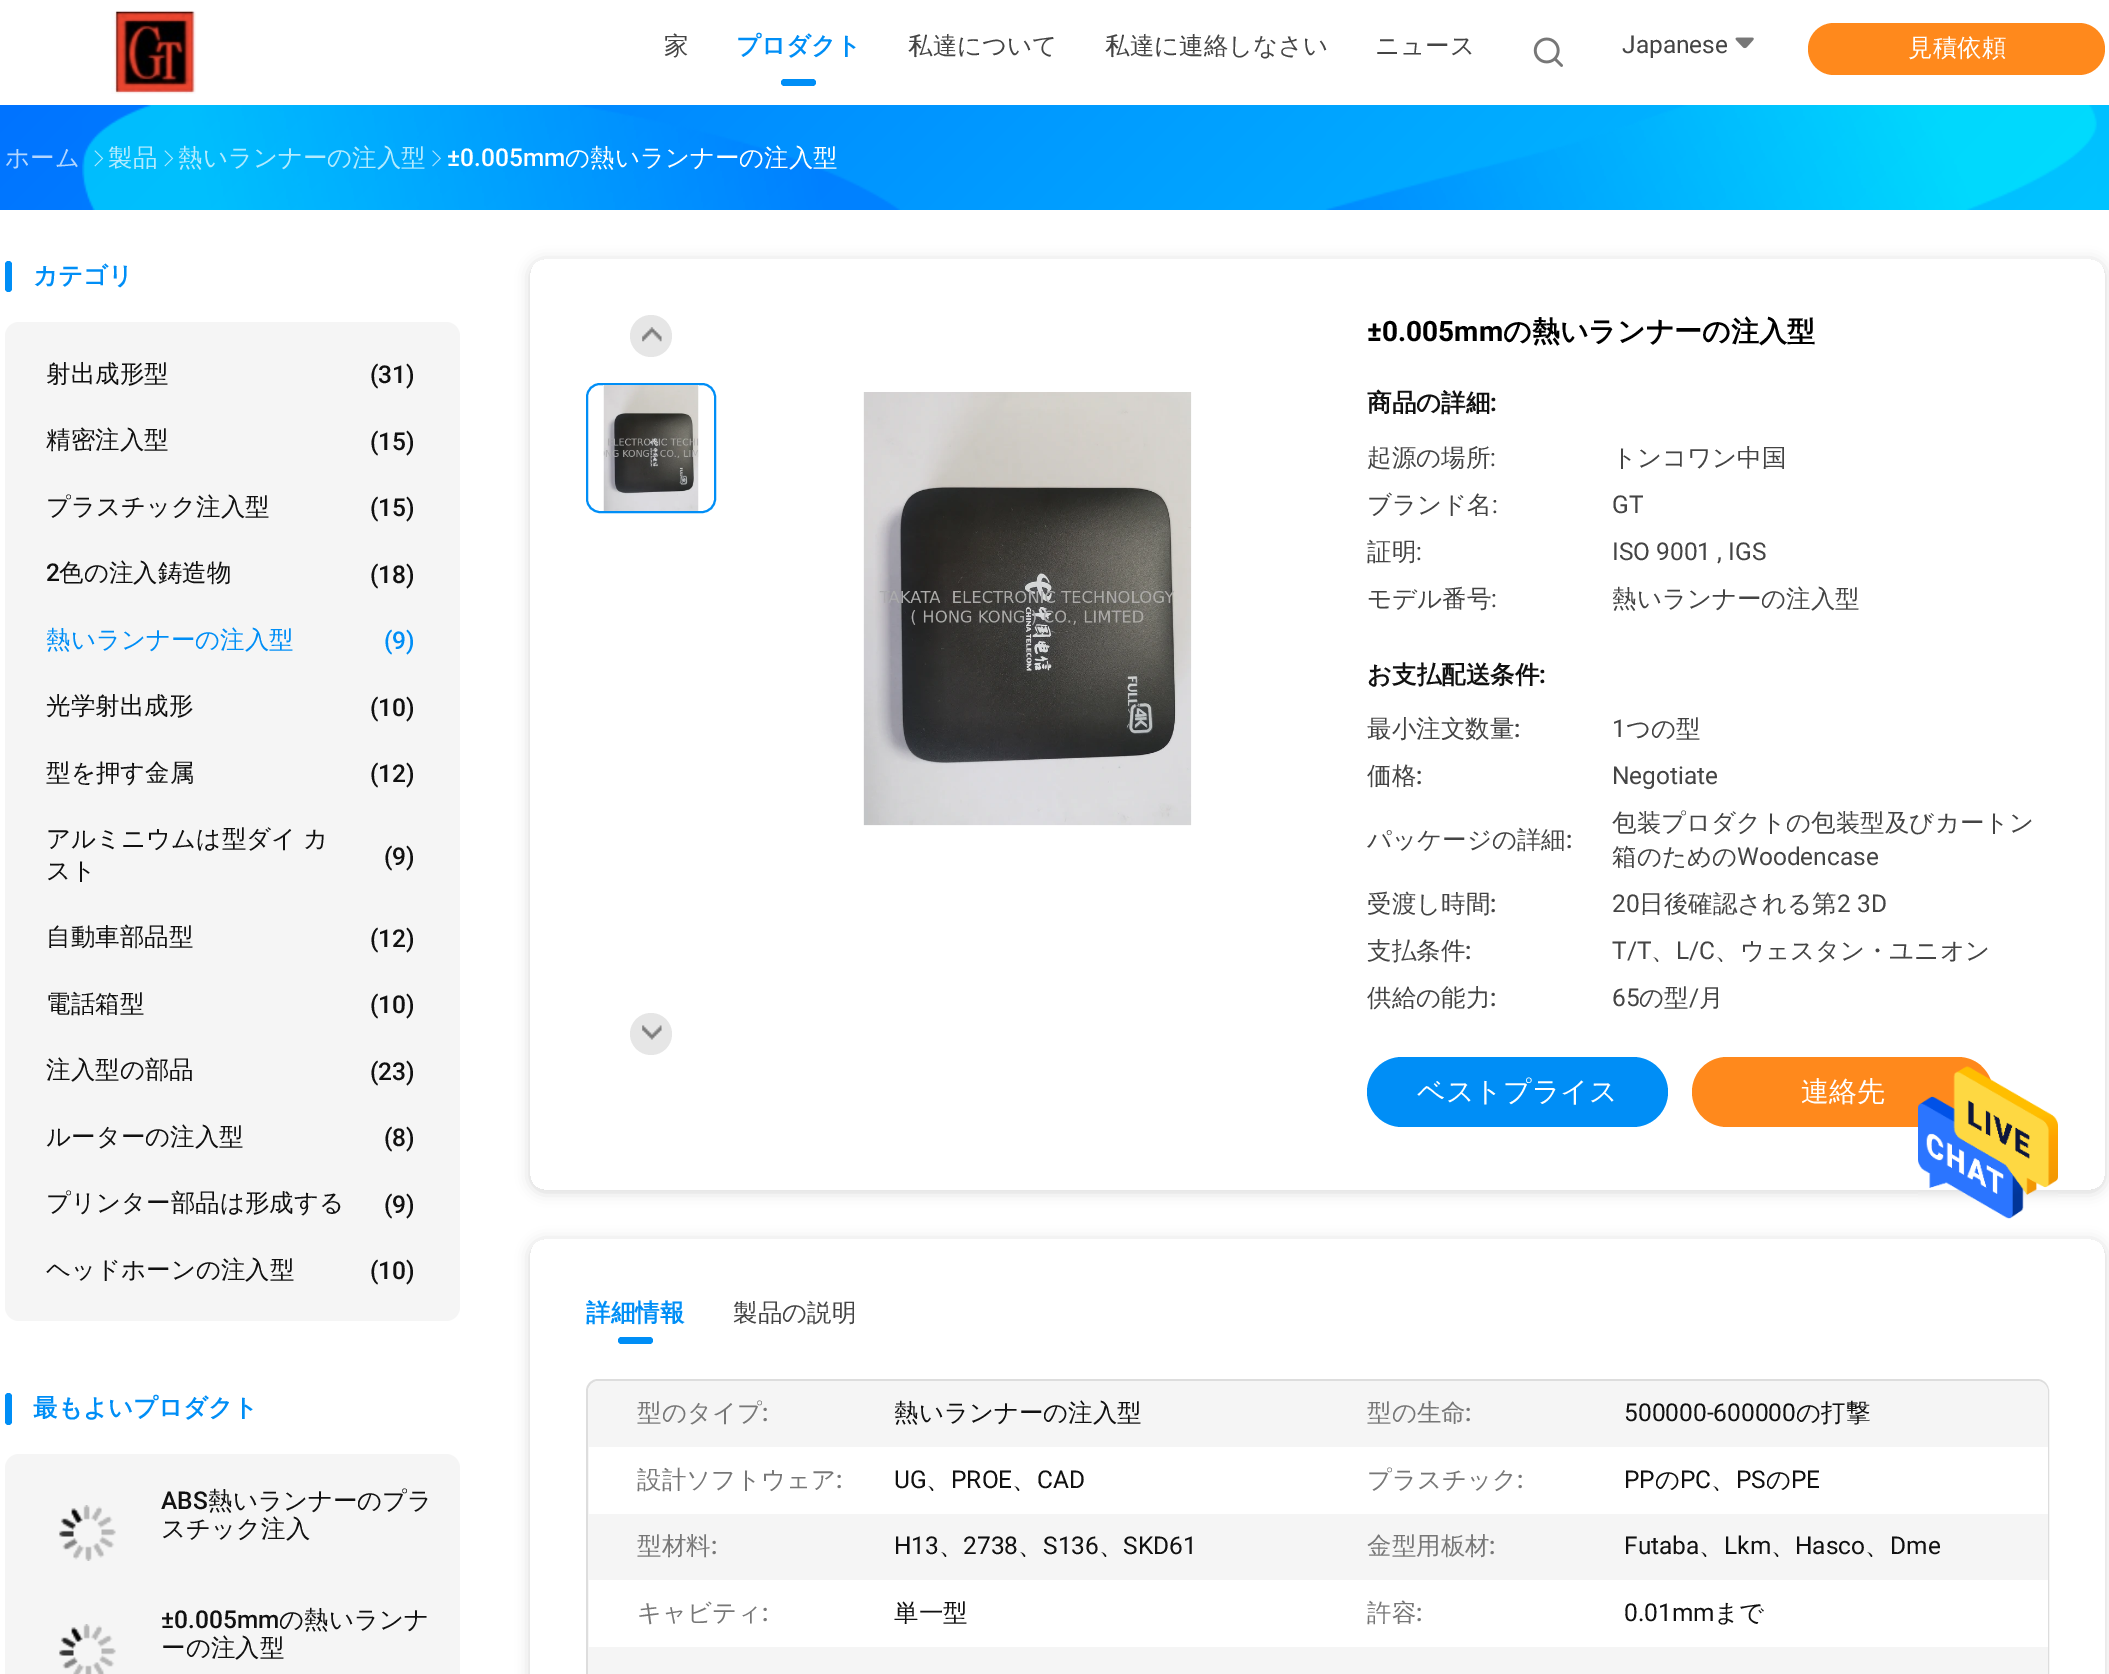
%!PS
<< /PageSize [2109 1674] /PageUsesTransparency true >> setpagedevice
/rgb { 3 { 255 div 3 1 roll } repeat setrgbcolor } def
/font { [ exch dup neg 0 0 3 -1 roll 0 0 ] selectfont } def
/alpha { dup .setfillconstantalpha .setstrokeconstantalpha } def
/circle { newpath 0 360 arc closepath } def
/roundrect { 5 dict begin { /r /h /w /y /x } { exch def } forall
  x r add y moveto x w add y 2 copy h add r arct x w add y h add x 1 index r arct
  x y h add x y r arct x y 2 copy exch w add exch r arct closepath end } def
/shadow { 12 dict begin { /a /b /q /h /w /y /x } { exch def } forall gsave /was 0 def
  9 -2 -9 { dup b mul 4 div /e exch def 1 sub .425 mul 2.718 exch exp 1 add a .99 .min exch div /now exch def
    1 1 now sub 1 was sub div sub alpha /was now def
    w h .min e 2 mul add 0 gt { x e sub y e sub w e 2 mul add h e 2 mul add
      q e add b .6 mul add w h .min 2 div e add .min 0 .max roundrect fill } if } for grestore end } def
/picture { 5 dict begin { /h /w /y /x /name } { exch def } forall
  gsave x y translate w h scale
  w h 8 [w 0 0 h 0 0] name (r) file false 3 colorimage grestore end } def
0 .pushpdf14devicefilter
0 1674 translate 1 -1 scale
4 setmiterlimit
255 255 255 rgb
0 0 2109 1674 rectfill
(img/1.rgb) 111 10 85 84 picture
0 142 246 rgb
781 79 35 7 3.5 roundrect fill
(img/2.rgb) 1533 37 30 30 picture
(img/3.rgb) 1735 37 19 12 picture
255 137 28 rgb
1808 23 297 52 26 roundrect fill
gsave 0 105 moveto 2109 105 lineto 2109 210 lineto 0 210 lineto closepath clip newpath
<< /ShadingType 2 /ColorSpace /DeviceRGB /Coords [501 -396 1609 711] /Extend [true true] /Function << /FunctionType 2 /Domain [0 1] /C0 [0 0.451 1] /C1 [0 0.769 1] /N 1 >> >> shfill grestore
(img/4.rgb) 82 105 818 105 picture
(img/5.rgb) 1326 105 771 105 picture
(img/6.rgb) 94 150 10 17 picture
(img/7.rgb) 164 150 10 17 picture
(img/8.rgb) 432 150 9 17 picture
0 142 246 rgb
5 261 7 31 3.5 roundrect fill
245 245 245 rgb
5 322 455 999 14 roundrect fill
0 142 246 rgb
5 1393 7 32 3.5 roundrect fill
245 245 245 rgb
5 1454 455 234 14 roundrect fill
(img/9.rgb) 59 1505 57 56 picture
(img/10.rgb) 59 1624 57 50 picture
gsave
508 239 moveto 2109 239 lineto 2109 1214 lineto 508 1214 lineto closepath 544 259 moveto 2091 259 lineto 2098.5 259 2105 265.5 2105 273 curveto 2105 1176 lineto 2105 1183.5 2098.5 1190 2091 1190 curveto 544 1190 lineto 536.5 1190 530 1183.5 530 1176 curveto 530 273 lineto 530 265.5 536.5 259 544 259 curveto closepath eoclip newpath
0 0 0 rgb
530 261 1575 931 14 7 0.16 shadow
grestore
230 230 230 rgb
651 336 21 circle fill
(img/11.rgb) 642 327 20 15 picture
0 142 246 rgb
2 setlinewidth
587 384 128 128 13 roundrect stroke
(img/12.rgb) 603 385 96 126 picture
230 230 230 rgb
651 1034 21 circle fill
(img/13.rgb) 642 1025 20 15 picture
(img/14.rgb) 863 392 329 434 picture
0 142 246 rgb
1367 1057 301 70 35 roundrect fill
255 137 28 rgb
1692 1057 301 70 35 roundrect fill
gsave
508 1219 moveto 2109 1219 lineto 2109 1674 lineto 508 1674 lineto closepath 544 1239 moveto 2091 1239 lineto 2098.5 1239 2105 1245.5 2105 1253 curveto 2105 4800 lineto 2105 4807.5 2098.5 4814 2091 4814 curveto 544 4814 lineto 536.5 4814 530 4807.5 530 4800 curveto 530 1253 lineto 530 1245.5 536.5 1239 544 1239 curveto closepath eoclip newpath
0 0 0 rgb
530 1241 1575 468 14 7 0.16 shadow
grestore
0 142 246 rgb
618 1337 35 7 3.5 roundrect fill
221 221 221 rgb
587 1380 1461 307 11 roundrect stroke
245 245 245 rgb
599 1381 moveto 2037 1381 lineto 2043 1381 2048 1386 2048 1392 curveto 2048 1447 lineto 588 1447 lineto 588 1392 lineto 588 1386 593 1381 599 1381 curveto closepath fill
[
  [2047 1447 1 67 255 255 255]
  [588 1514 1460 66 245 245 245]
  [2047 1580 1 67 255 255 255]
  [588 1647 1460 27 245 245 245]
] { aload pop rgb rectfill } forall
(img/15.rgb) 1918 1066 140 153 picture
/WenQuanYiZenHei-Medium 24.5 font
68 68 68 rgb
664 54 moveto (家) show
/WenQuanYiZenHei-Bold 24.5 font
0 142 246 rgb
736 54 moveto (プロダクト) show
/WenQuanYiZenHei-Medium 24.5 font
68 68 68 rgb
[
  [(私達について) 908 54]
  [(私達に連絡しなさい) 1105 54]
  [(ニュース) 1375 54]
] { aload pop moveto show } forall
/Roboto-Regular 24.5 font
1622 53 moveto (Japanese) show
/WenQuanYiZenHei-Medium 24.5 font
255 255 255 rgb
1908 56 moveto (見積依頼) show
179 214 255 rgb
5 166 moveto (ホーム) show
179 235 254 rgb
108 166 moveto (製品) show
178 166 moveto (熱いランナーの注入型) show
/Roboto-Medium 24.5 font
255 255 255 rgb
447 166 moveto (±0.005mm) show
/WenQuanYiZenHei-Medium 24.5 font
565 166 moveto (の熱いランナーの注入型) show
/WenQuanYiZenHei-Bold 24.5 font
0 142 246 rgb
33 284 moveto (カテゴリ) show
/WenQuanYiZenHei-Medium 24.5 font
17 17 17 rgb
46 382 moveto (射出成形型) show
/Roboto-Medium 24.5 font
370 383 moveto (\(31\)) show
/WenQuanYiZenHei-Medium 24.5 font
46 448 moveto (精密注入型) show
/Roboto-Medium 24.5 font
370 450 moveto (\(15\)) show
/WenQuanYiZenHei-Medium 24.5 font
46 515 moveto (プラスチック注入型) show
/Roboto-Medium 24.5 font
370 516 moveto (\(15\)) show
46 581 moveto (2) show
/WenQuanYiZenHei-Medium 24.5 font
59 581 moveto (色の注入鋳造物) show
/Roboto-Medium 24.5 font
370 583 moveto (\(18\)) show
/WenQuanYiZenHei-Medium 24.5 font
0 142 246 rgb
46 648 moveto (熱いランナーの注入型) show
/Roboto-Medium 24.5 font
384 649 moveto (\(9\)) show
/WenQuanYiZenHei-Medium 24.5 font
17 17 17 rgb
46 714 moveto (光学射出成形) show
/Roboto-Medium 24.5 font
370 716 moveto (\(10\)) show
/WenQuanYiZenHei-Medium 24.5 font
46 781 moveto (型を押す金属) show
/Roboto-Medium 24.5 font
370 782 moveto (\(12\)) show
/WenQuanYiZenHei-Medium 24.5 font
46 847 moveto -1 0 32 (アルミニウムは型ダイ カ) widthshow
46 879 moveto (スト) show
/Roboto-Medium 24.5 font
384 865 moveto (\(9\)) show
/WenQuanYiZenHei-Medium 24.5 font
46 945 moveto (自動車部品型) show
/Roboto-Medium 24.5 font
370 947 moveto (\(12\)) show
/WenQuanYiZenHei-Medium 24.5 font
46 1012 moveto (電話箱型) show
/Roboto-Medium 24.5 font
370 1013 moveto (\(10\)) show
/WenQuanYiZenHei-Medium 24.5 font
46 1078 moveto (注入型の部品) show
/Roboto-Medium 24.5 font
370 1080 moveto (\(23\)) show
/WenQuanYiZenHei-Medium 24.5 font
46 1145 moveto (ルーターの注入型) show
/Roboto-Medium 24.5 font
384 1146 moveto (\(8\)) show
/WenQuanYiZenHei-Medium 24.5 font
46 1211 moveto (プリンター部品は形成する) show
/Roboto-Medium 24.5 font
384 1213 moveto (\(9\)) show
/WenQuanYiZenHei-Medium 24.5 font
46 1278 moveto (ヘッドホーンの注入型) show
/Roboto-Medium 24.5 font
370 1279 moveto (\(10\)) show
/WenQuanYiZenHei-Bold 24.5 font
0 142 246 rgb
33 1416 moveto (最もよいプロダクト) show
/Roboto-Medium 24.5 font
17 17 17 rgb
161 1509 moveto (ABS) show
/WenQuanYiZenHei-Medium 24.5 font
208 1509 moveto (熱いランナーのプラ) show
161 1537 moveto (スチック注入) show
/Roboto-Medium 24.5 font
161 1628 moveto (±0.005mm) show
/WenQuanYiZenHei-Medium 24.5 font
279 1628 moveto (の熱いランナ) show
161 1656 moveto (ーの注入型) show
/Roboto-Bold 28 font
0 0 0 rgb
1367 341 moveto (±0.005mm) show
/WenQuanYiZenHei-Bold 28 font
1503 341 moveto (の熱いランナーの注入型) show
/WenQuanYiZenHei-Bold 24.5 font
17 17 17 rgb
1367 411 moveto (商品の詳細) show
/Roboto-Bold 24.5 font
1490 411 moveto (:) show
/WenQuanYiZenHei-Medium 24.5 font
68 68 68 rgb
1367 466 moveto (起源の場所) show
/Roboto-Regular 24.5 font
1490 466 moveto (:) show
/WenQuanYiZenHei-Medium 24.5 font
1612 466 moveto (トンコワン中国) show
1367 513 moveto (ブランド名) show
/Roboto-Regular 24.5 font
1492 513 moveto (:) show
1612 513 moveto (GT) show
/WenQuanYiZenHei-Medium 24.5 font
1367 560 moveto (証明) show
/Roboto-Regular 24.5 font
1416 560 moveto (:) show
1612 560 moveto (ISO 9001 , IGS) show
/WenQuanYiZenHei-Medium 24.5 font
1367 607 moveto (モデル番号) show
/Roboto-Regular 24.5 font
1491 607 moveto (:) show
/WenQuanYiZenHei-Medium 24.5 font
1612 607 moveto (熱いランナーの注入型) show
/WenQuanYiZenHei-Bold 24.5 font
17 17 17 rgb
1367 683 moveto (お支払配送条件) show
/Roboto-Bold 24.5 font
1539 683 moveto (:) show
/WenQuanYiZenHei-Medium 24.5 font
68 68 68 rgb
1367 737 moveto (最小注文数量) show
/Roboto-Medium 24.5 font
1514 737 moveto (:) show
/Roboto-Regular 24.5 font
1612 737 moveto (1) show
/WenQuanYiZenHei-Medium 24.5 font
1626 737 moveto (つの型) show
1367 784 moveto (価格) show
/Roboto-Medium 24.5 font
1416 784 moveto (:) show
/Roboto-Regular 24.5 font
1612 784 moveto (Negotiate) show
/WenQuanYiZenHei-Medium 24.5 font
1367 848 moveto (パッケージの詳細) show
/Roboto-Medium 24.5 font
1566 848 moveto (:) show
/WenQuanYiZenHei-Medium 24.5 font
1612 831 moveto (包装プロダクトの包装型及びカートン) show
1612 865 moveto (箱のための) show
/Roboto-Regular 24.5 font
1737 865 moveto (Woodencase) show
/WenQuanYiZenHei-Medium 24.5 font
1367 912 moveto (受渡し時間) show
/Roboto-Medium 24.5 font
1490 912 moveto (:) show
/Roboto-Regular 24.5 font
1612 912 moveto (20) show
/WenQuanYiZenHei-Medium 24.5 font
1639 912 moveto (日後確認される第) show
/Roboto-Regular 24.5 font
1837 912 moveto (2 3D) show
/WenQuanYiZenHei-Medium 24.5 font
1367 959 moveto (支払条件) show
/Roboto-Medium 24.5 font
1465 959 moveto (:) show
/Roboto-Regular 24.5 font
1612 959 moveto (T/T) show
/WenQuanYiZenHei-Medium 24.5 font
1651 959 moveto (、) show
/Roboto-Regular 24.5 font
1676 959 moveto (L/C) show
/WenQuanYiZenHei-Medium 24.5 font
1715 959 moveto (、ウェスタン・ユニオン) show
1367 1006 moveto (供給の能力) show
/Roboto-Medium 24.5 font
1490 1006 moveto (:) show
/Roboto-Regular 24.5 font
1612 1006 moveto (65) show
/WenQuanYiZenHei-Medium 24.5 font
1639 1006 moveto (の型) show
/Roboto-Regular 24.5 font
1689 1006 moveto (/) show
/WenQuanYiZenHei-Medium 24.5 font
1699 1006 moveto (月) show
/WenQuanYiZenHei-Medium 28 font
255 255 255 rgb
1417 1101 moveto (ベストプライス) show
1801 1101 moveto (連絡先) show
/WenQuanYiZenHei-Bold 24.5 font
0 142 246 rgb
586 1321 moveto (詳細情報) show
/WenQuanYiZenHei-Medium 24.5 font
68 68 68 rgb
733 1321 moveto (製品の説明) show
119 119 119 rgb
637 1421 moveto (型のタイプ) show
/Roboto-Medium 24.5 font
762 1421 moveto (:) show
/WenQuanYiZenHei-Medium 24.5 font
17 17 17 rgb
894 1421 moveto (熱いランナーの注入型) show
119 119 119 rgb
1367 1421 moveto (型の生命) show
/Roboto-Medium 24.5 font
1465 1421 moveto (:) show
/Roboto-Regular 24.5 font
17 17 17 rgb
1624 1421 moveto (500000-600000) show
/WenQuanYiZenHei-Medium 24.5 font
1796 1421 moveto (の打撃) show
119 119 119 rgb
637 1488 moveto (設計ソフトウェア) show
/Roboto-Medium 24.5 font
836 1488 moveto (:) show
/Roboto-Regular 24.5 font
17 17 17 rgb
894 1488 moveto (UG) show
/WenQuanYiZenHei-Medium 24.5 font
926 1488 moveto (、) show
/Roboto-Regular 24.5 font
951 1488 moveto (PROE) show
/WenQuanYiZenHei-Medium 24.5 font
1012 1488 moveto (、) show
/Roboto-Regular 24.5 font
1037 1488 moveto (CAD) show
/WenQuanYiZenHei-Medium 24.5 font
119 119 119 rgb
1367 1488 moveto (プラスチック) show
/Roboto-Medium 24.5 font
1517 1488 moveto (:) show
/Roboto-Regular 24.5 font
17 17 17 rgb
1624 1488 moveto (PP) show
/WenQuanYiZenHei-Medium 24.5 font
1655 1488 moveto (の) show
/Roboto-Regular 24.5 font
1680 1488 moveto (PC) show
/WenQuanYiZenHei-Medium 24.5 font
1711 1488 moveto (、) show
/Roboto-Regular 24.5 font
1736 1488 moveto (PS) show
/WenQuanYiZenHei-Medium 24.5 font
1766 1488 moveto (の) show
/Roboto-Regular 24.5 font
1791 1488 moveto (PE) show
/WenQuanYiZenHei-Medium 24.5 font
119 119 119 rgb
637 1554 moveto (型材料) show
/Roboto-Medium 24.5 font
711 1554 moveto (:) show
/Roboto-Regular 24.5 font
17 17 17 rgb
894 1554 moveto (H13) show
/WenQuanYiZenHei-Medium 24.5 font
939 1554 moveto (、) show
/Roboto-Regular 24.5 font
963 1554 moveto (2738) show
/WenQuanYiZenHei-Medium 24.5 font
1018 1554 moveto (、) show
/Roboto-Regular 24.5 font
1043 1554 moveto (S136) show
/WenQuanYiZenHei-Medium 24.5 font
1099 1554 moveto (、) show
/Roboto-Regular 24.5 font
1123 1554 moveto (SKD61) show
/WenQuanYiZenHei-Medium 24.5 font
119 119 119 rgb
1367 1554 moveto (金型用板材) show
/Roboto-Medium 24.5 font
1489 1554 moveto (:) show
/Roboto-Regular 24.5 font
17 17 17 rgb
1624 1554 moveto (Futaba) show
/WenQuanYiZenHei-Medium 24.5 font
1699 1554 moveto (、) show
/Roboto-Regular 24.5 font
1724 1554 moveto (Lkm) show
/WenQuanYiZenHei-Medium 24.5 font
1771 1554 moveto (、) show
/Roboto-Regular 24.5 font
1795 1554 moveto (Hasco) show
/WenQuanYiZenHei-Medium 24.5 font
1865 1554 moveto (、) show
/Roboto-Regular 24.5 font
1890 1554 moveto (Dme) show
/WenQuanYiZenHei-Medium 24.5 font
119 119 119 rgb
637 1621 moveto (キャビティ) show
/Roboto-Medium 24.5 font
762 1621 moveto (:) show
/WenQuanYiZenHei-Medium 24.5 font
17 17 17 rgb
894 1621 moveto (単一型) show
119 119 119 rgb
1367 1621 moveto (許容) show
/Roboto-Medium 24.5 font
1416 1621 moveto (:) show
/Roboto-Regular 24.5 font
17 17 17 rgb
1624 1621 moveto (0.01mm) show
/WenQuanYiZenHei-Medium 24.5 font
1714 1621 moveto (まで) show
.poppdf14devicefilter showpage
